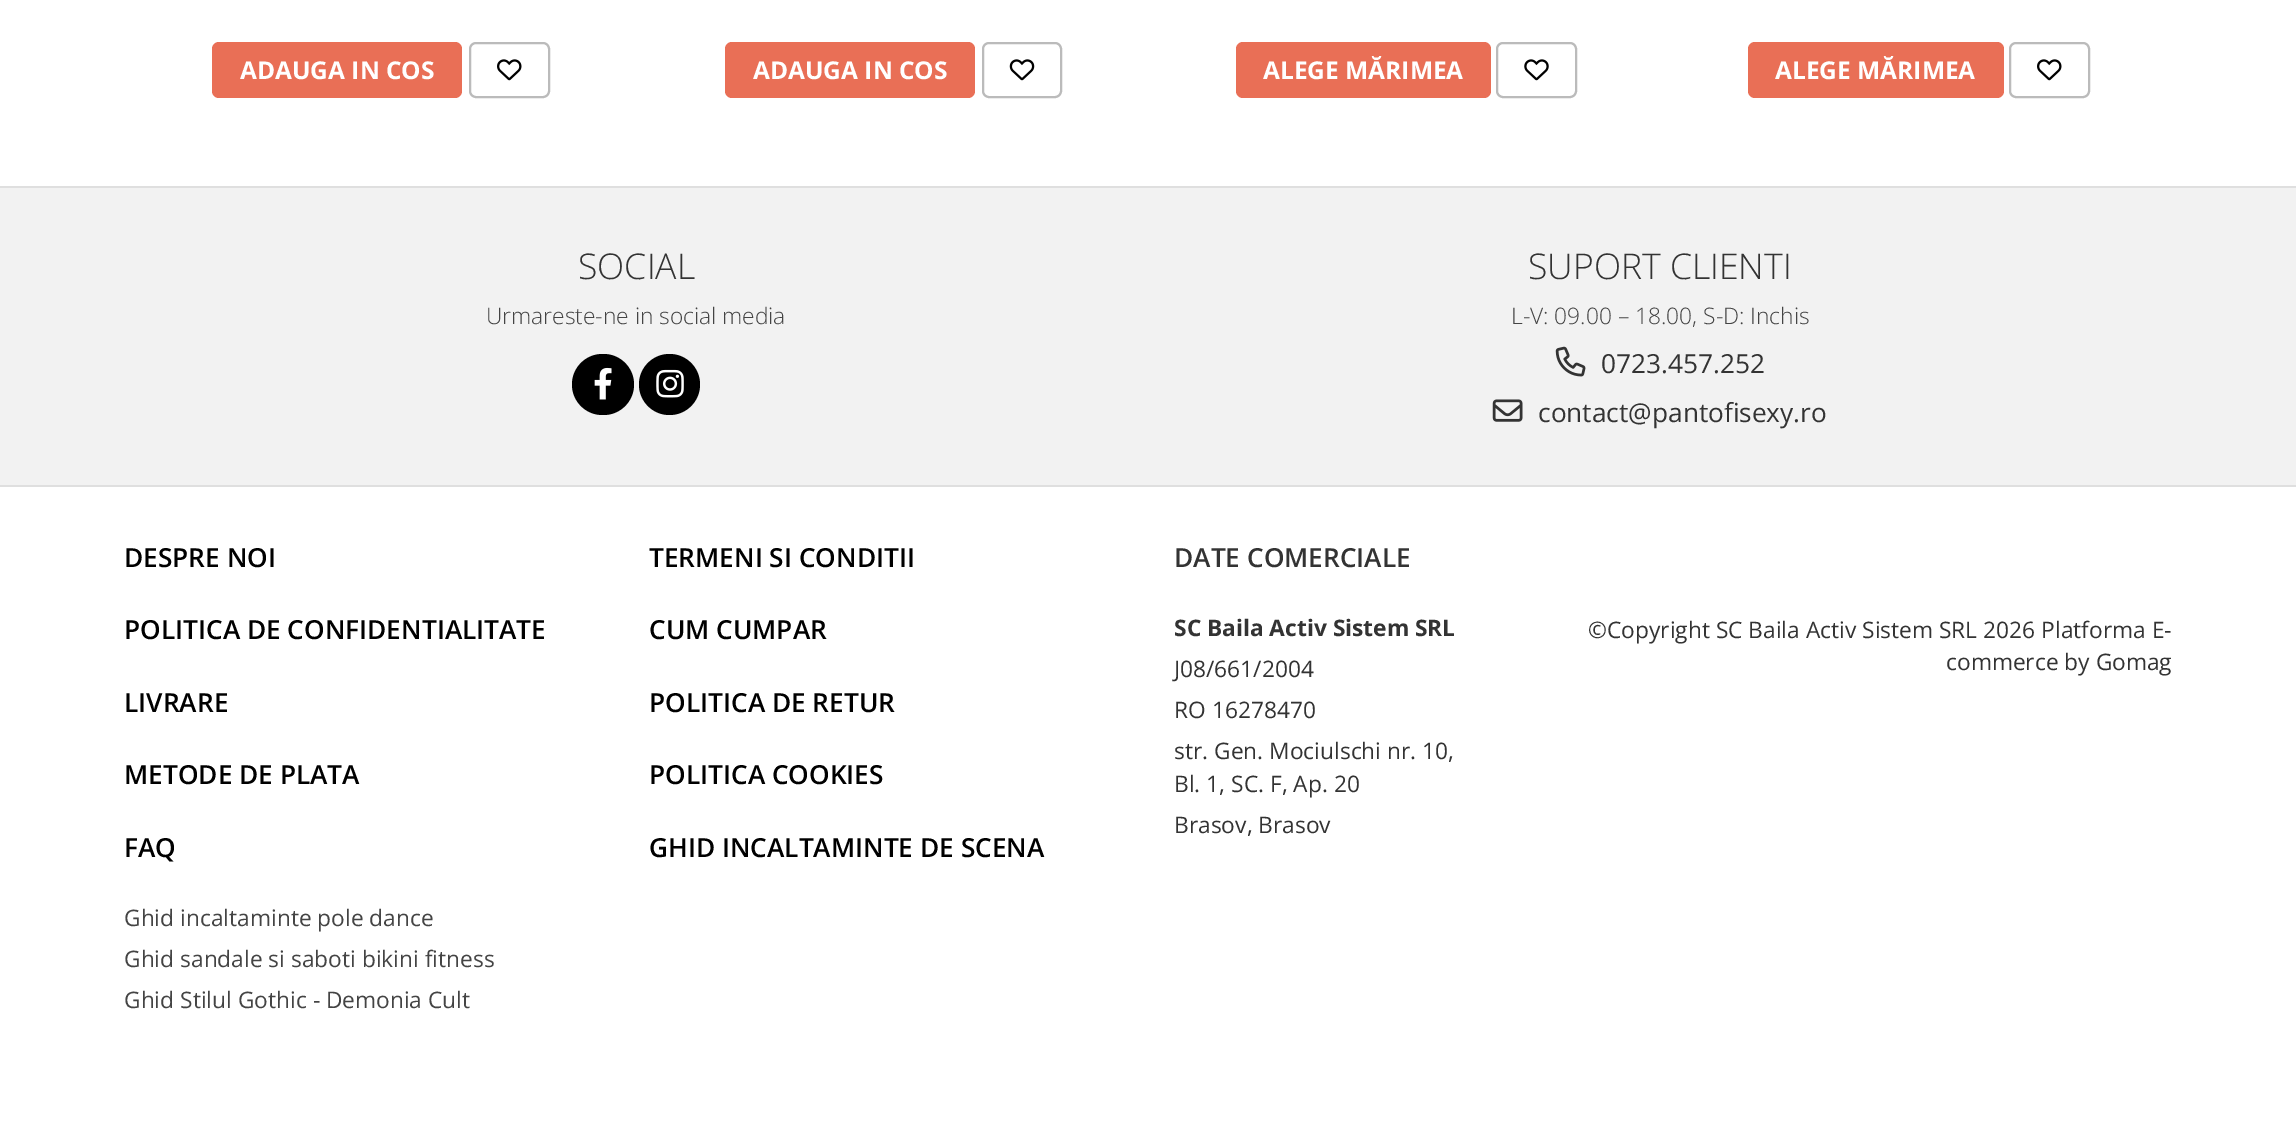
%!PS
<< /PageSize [2296 1148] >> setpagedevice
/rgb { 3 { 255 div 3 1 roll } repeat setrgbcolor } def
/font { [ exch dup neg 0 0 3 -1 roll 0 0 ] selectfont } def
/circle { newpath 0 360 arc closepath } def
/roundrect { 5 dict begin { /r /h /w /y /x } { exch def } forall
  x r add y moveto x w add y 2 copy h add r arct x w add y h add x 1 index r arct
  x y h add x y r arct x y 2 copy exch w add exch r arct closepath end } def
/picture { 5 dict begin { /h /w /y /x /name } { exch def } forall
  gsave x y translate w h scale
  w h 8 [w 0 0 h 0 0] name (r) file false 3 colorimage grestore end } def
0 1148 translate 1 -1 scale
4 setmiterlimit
255 255 255 rgb
0 0 2296 1148 rectfill
233 111 86 rgb
212 42 250 56 7 roundrect fill
187 187 187 rgb
2 setlinewidth
470 43 79 54 6 roundrect stroke
(img/1.rgb) 497 59 25 22 picture
233 111 86 rgb
725 42 250 56 7 roundrect fill
187 187 187 rgb
983 43 78 54 6 roundrect stroke
(img/2.rgb) 1009 59 26 22 picture
233 111 86 rgb
1236 42 255 56 7 roundrect fill
187 187 187 rgb
1497 43 79 54 6 roundrect stroke
(img/3.rgb) 1524 59 25 22 picture
233 111 86 rgb
1748 42 256 56 7 roundrect fill
187 187 187 rgb
2010 43 79 54 6 roundrect stroke
(img/1.rgb) 2037 59 25 22 picture
[
  [0 188 2296 297 242 242 242]
  [0 186 2296 2 223 223 223]
  [0 485 2296 2 223 223 223]
] { aload pop rgb rectfill } forall
0 0 0 rgb
572 354 62 61 30.5 roundrect fill
(img/4.rgb) 594 367 18 33 picture
669.5 384.5 30.5 circle fill
(img/5.rgb) 656 369 28 29 picture
(img/6.rgb) 1555 346 31 31 picture
(img/7.rgb) 1492 399 31 23 picture
/OpenSans-Bold 24.5 font
255 255 255 rgb
[
  [(ADAUGA IN COS) 240 79]
  [(ADAUGA IN COS) 753 79]
  [(ALEGE MĂRIMEA) 1263 79]
  [(ALEGE MĂRIMEA) 1775 79]
] { aload pop moveto show } forall
/OpenSans-Light 35.5 font
51 51 51 rgb
578 279 moveto (SOCIAL) show
/OpenSans-Light 22.75 font
68 68 68 rgb
486 324 moveto (Urmareste-ne in social media) show
/OpenSans-Light 35.5 font
51 51 51 rgb
1528 279 moveto (SUPORT CLIENTI) show
/OpenSans-Light 22.75 font
68 68 68 rgb
1511 324 moveto (L-V: 09.00 – 18.00, S-D: Inchis) show
/OpenSans-Regular 26.25 font
51 51 51 rgb
1601 373 moveto (0723.457.252) show
1538 422 moveto (contact@pantofisexy.ro) show
/OpenSans-SemiBold 26.25 font
0 0 0 rgb
[
  [(DESPRE NOI) 124 567]
  [(POLITICA DE CONFIDENTIALITATE) 124 639]
  [(LIVRARE) 124 712]
  [(METODE DE PLATA) 124 784]
  [(FAQ) 124 857]
] { aload pop moveto show } forall
/OpenSans-Regular 22.75 font
68 68 68 rgb
[
  [(Ghid incaltaminte pole dance) 124 926]
  [(Ghid sandale si saboti bikini fitness) 124 967]
  [(Ghid Stilul Gothic - Demonia Cult) 124 1008]
] { aload pop moveto show } forall
/OpenSans-SemiBold 26.25 font
0 0 0 rgb
[
  [(TERMENI SI CONDITII) 649 567]
  [(CUM CUMPAR) 649 639]
  [(POLITICA DE RETUR) 649 712]
  [(POLITICA COOKIES) 649 784]
  [(GHID INCALTAMINTE DE SCENA) 649 857]
] { aload pop moveto show } forall
51 51 51 rgb
1174 567 moveto (DATE COMERCIALE) show
/OpenSans-Bold 22.75 font
1174 636 moveto (SC Baila Activ Sistem SRL) show
/OpenSans-Regular 22.75 font
[
  [(J08/661/2004) 1174 677]
  [(RO 16278470) 1174 718]
  [(str. Gen. Mociulschi nr. 10,) 1174 759]
  [(Bl. 1, SC. F, Ap. 20) 1174 792]
  [(Brasov, Brasov) 1174 833]
  [(©Copyright SC Baila Activ Sistem SRL 2026 Platforma E-) 1588 638]
  [(commerce by Gomag) 1946 670]
] { aload pop moveto show } forall
showpage
